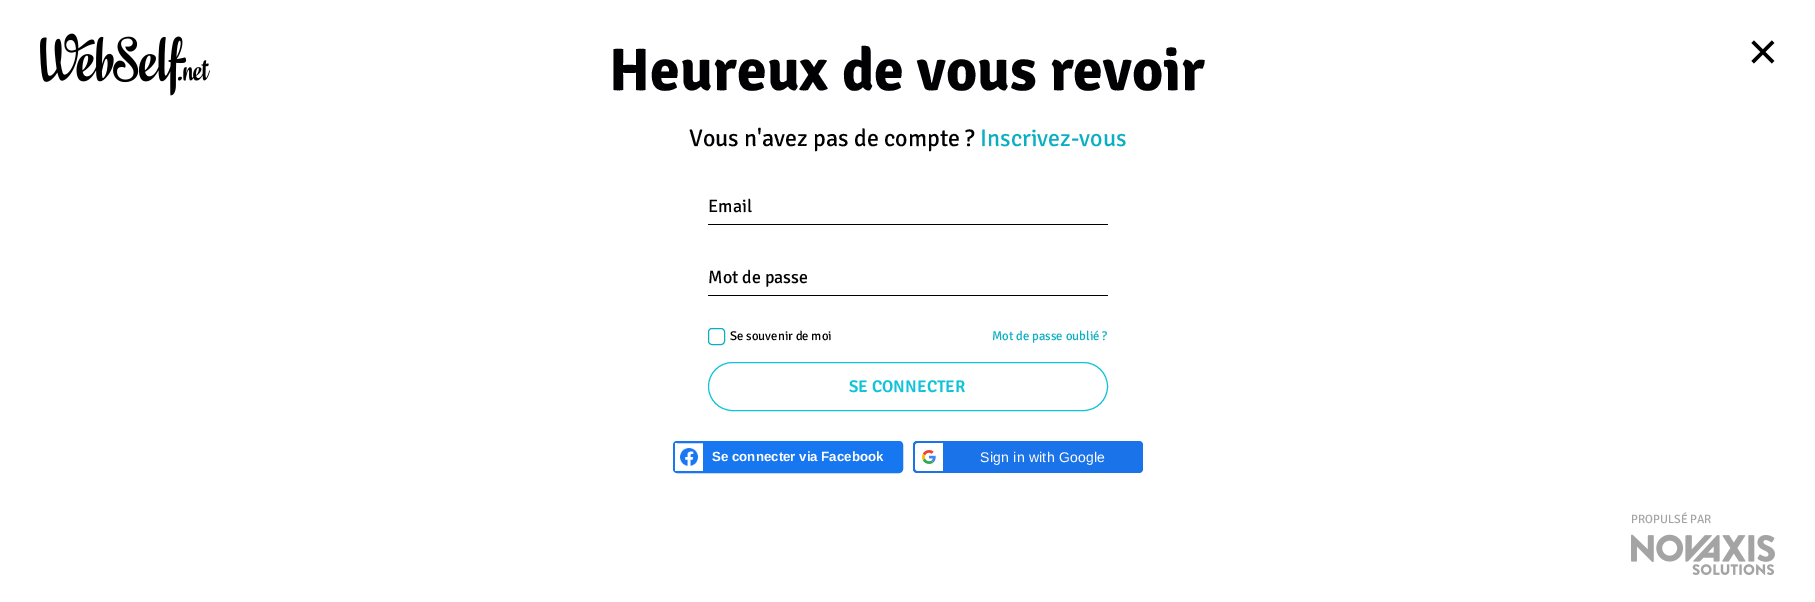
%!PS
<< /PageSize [1815 602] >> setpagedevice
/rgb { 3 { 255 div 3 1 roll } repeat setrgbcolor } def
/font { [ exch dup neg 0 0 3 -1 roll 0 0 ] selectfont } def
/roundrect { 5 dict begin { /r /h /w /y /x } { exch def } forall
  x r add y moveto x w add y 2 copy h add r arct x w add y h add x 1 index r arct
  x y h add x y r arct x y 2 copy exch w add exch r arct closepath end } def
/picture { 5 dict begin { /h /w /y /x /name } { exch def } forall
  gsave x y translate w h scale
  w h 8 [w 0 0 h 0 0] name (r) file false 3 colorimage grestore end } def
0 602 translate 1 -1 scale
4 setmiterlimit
255 255 255 rgb
0 0 1815 602 rectfill
(img/1.rgb) 40 33 170 63 picture
1 0 3 rgb
708 224 400 1 rectfill
708 295 400 1 rectfill
11 175 194 rgb
708.5 328.5 16 16 3.5 roundrect stroke
15 195 216 rgb
708.5 362.5 399 48 24 roundrect stroke
23 119 241 rgb
2 setlinewidth
674 442 228 30 3 roundrect stroke
255 255 255 rgb
675 443 2 28 rectfill
(img/2.rgb) 680 448 18 18 picture
23 119 241 rgb
703 443 198 28 rectfill
26 115 232 rgb
913 441 230 32 4 roundrect fill
255 255 255 rgb
918 443 moveto 943 443 lineto 943 471 lineto 918 471 lineto 916.5 471 915 469.5 915 468 curveto 915 446 lineto 915 444.5 916.5 443 918 443 curveto closepath fill
(img/3.rgb) 922 450 14 14 picture
(img/4.rgb) 1751 40 24 24 picture
(img/5.rgb) 1631 534 144 41 picture
/Signika-Bold 60 font
1 0 3 rgb
609 90 moveto (Heureux de vous revoir) show
/Signika-Regular 24 font
689 146 moveto (Vous n'avez pas de compte ?) show
11 175 194 rgb
980 146 moveto (Inscrivez-vous) show
/Signika-Regular 18 font
1 0 3 rgb
708 212 moveto (Email) show
708 283 moveto (Mot de passe) show
/Signika-Regular 12.75 font
730 340 moveto (Se souvenir de moi) show
11 175 194 rgb
992 340 moveto (Mot de passe oublié ?) show
/Signika-SemiBold 17 font
15 195 216 rgb
849 392 moveto (SE CONNECTER) show
/LiberationSans-Bold 13.3 font
255 255 255 rgb
712 461 moveto (Se connecter via Facebook) show
/LiberationSans-Regular 14 font
980 462 moveto 0.25 0 (Sign in with Google) ashow
/Signika-Regular 12 font
164 164 164 rgb
1631 523 moveto (PROPULSÉ PAR) show
showpage
